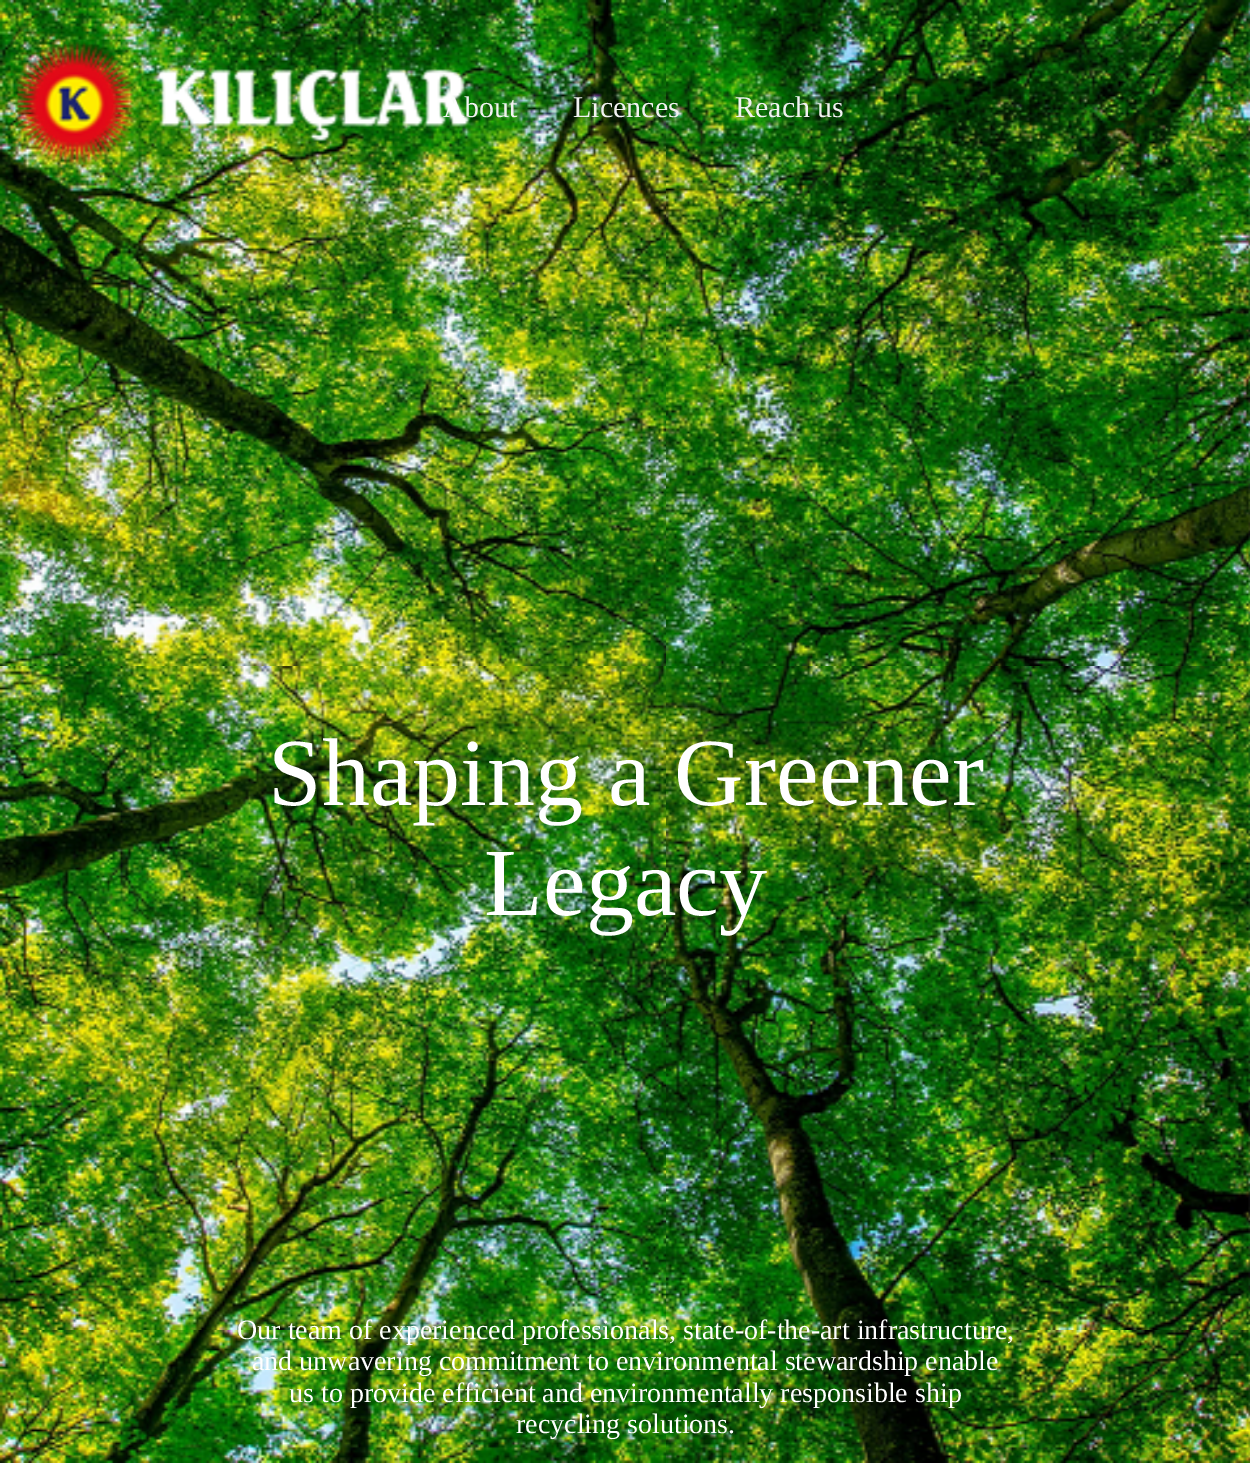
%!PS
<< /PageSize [1250 1463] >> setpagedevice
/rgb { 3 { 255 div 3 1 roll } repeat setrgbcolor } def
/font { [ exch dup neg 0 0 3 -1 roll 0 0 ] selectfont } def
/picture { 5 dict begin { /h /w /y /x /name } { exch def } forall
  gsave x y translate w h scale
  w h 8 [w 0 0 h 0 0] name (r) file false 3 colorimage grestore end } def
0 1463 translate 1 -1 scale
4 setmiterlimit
255 255 255 rgb
0 0 1250 1463 rectfill
(img/1.rgb) 0 0 1250 1463 picture
/LiberationSerif-Regular 30 font
242 242 242 rgb
464 117 moveto (bout) show
(img/2.rgb) 17 41 453 125 picture
573 117 moveto (Licences) show
735 117 moveto (Reach us) show
/LiberationSerif-Regular 96.25 font
255 255 255 rgb
268 805 moveto (Shaping a Greener) show
484 915 moveto (Legacy) show
/LiberationSerif-Regular 28 font
[
  [(Our team of experienced professionals, state-of-the-art infrastructure,) 237 1339]
  [(and unwavering commitment to environmental stewardship enable) 252 1370]
  [(us to provide efficient and environmentally responsible ship) 289 1402]
  [(recycling solutions.) 516 1433]
] { aload pop moveto show } forall
showpage
